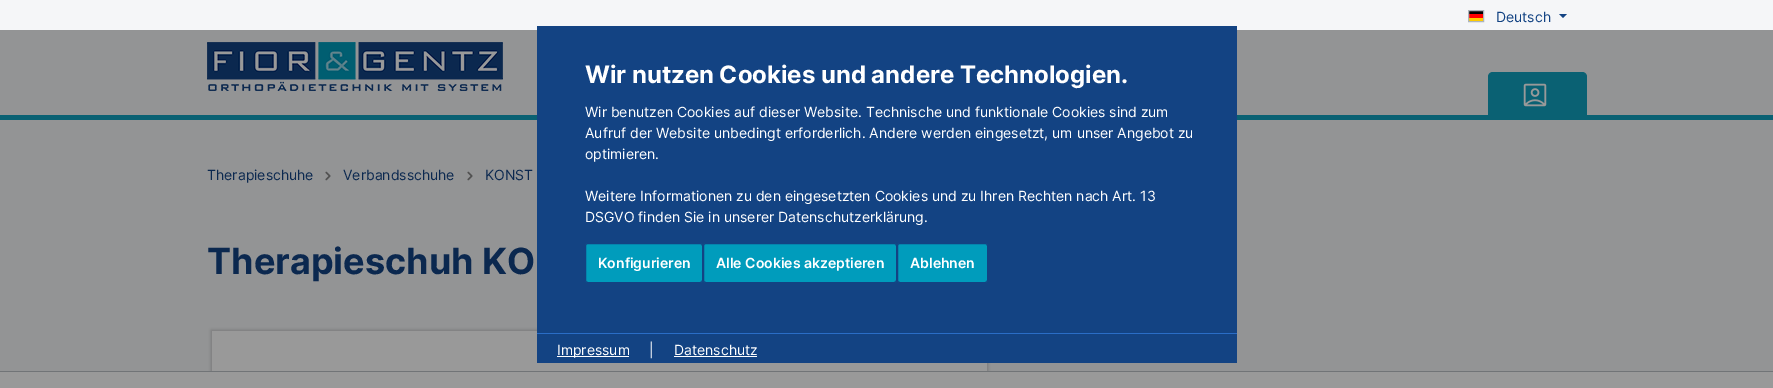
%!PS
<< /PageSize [1773 388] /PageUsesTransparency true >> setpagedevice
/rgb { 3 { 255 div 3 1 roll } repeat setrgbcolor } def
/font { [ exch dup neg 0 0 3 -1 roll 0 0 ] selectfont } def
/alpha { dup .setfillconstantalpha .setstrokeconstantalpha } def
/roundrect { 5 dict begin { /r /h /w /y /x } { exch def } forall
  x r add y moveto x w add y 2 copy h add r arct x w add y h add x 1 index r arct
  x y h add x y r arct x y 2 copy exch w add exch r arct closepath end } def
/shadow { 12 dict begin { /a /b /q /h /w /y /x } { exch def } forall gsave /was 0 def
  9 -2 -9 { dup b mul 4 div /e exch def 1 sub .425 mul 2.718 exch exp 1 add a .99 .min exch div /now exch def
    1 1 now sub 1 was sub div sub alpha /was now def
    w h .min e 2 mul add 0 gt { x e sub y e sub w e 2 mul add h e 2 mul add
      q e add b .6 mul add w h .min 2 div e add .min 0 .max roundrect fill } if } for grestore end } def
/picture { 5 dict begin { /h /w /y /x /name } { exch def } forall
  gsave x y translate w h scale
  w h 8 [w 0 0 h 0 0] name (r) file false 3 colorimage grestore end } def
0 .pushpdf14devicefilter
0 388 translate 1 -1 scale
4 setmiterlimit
245 246 248 rgb
0 0 1773 388 rectfill
[
  [0 30 1773 85 147 148 149]
  [0 115 1773 5 10 97 115]
  [1469 11 14 3 0 0 0]
  [1469 14 14 4 255 0 0]
  [1469 18 14 3 255 204 0]
] { aload pop rgb rectfill } forall
173 181 189 rgb
1468.5 10.5 15 11 rectstroke
19 67 131 rgb
1559 14 moveto 1567 14 lineto 1563 18 lineto closepath fill
(img/1.rgb) 207 42 296 49 picture
10 97 115 rgb
1493 72 moveto 1582 72 lineto 1585 72 1587 74 1587 77 curveto 1587 118 lineto 1488 118 lineto 1488 77 lineto 1488 74 1490 72 1493 72 curveto closepath fill
(img/2.rgb) 1523 83 24 24 picture
147 148 149 rgb
0 120 1773 251 rectfill
(img/3.rgb) 325 171 6 10 picture
(img/3.rgb) 467 171 6 10 picture
122 122 122 rgb
211 330 777 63 0 1.5 1 shadow
[
  [212 331 775 40 153 153 153]
  [0 372 1773 16 153 153 153]
  [0 371 1773 1 113 116 119]
  [537 26 700 337 19 67 131]
] { aload pop rgb rectfill } forall
0 156 188 rgb
585.5 243.5 117 39 2.5 roundrect gsave fill grestore
19 67 131 rgb
stroke
0 156 188 rgb
703.5 243.5 193 39 2.5 roundrect gsave fill grestore
19 67 131 rgb
stroke
0 156 188 rgb
897.5 243.5 90 39 2.5 roundrect gsave fill grestore
19 67 131 rgb
stroke
[
  [537 333 700 1 42 109 198]
  [557 356 72 1 255 255 255]
  [674 356 83 1 255 255 255]
] { aload pop rgb rectfill } forall
/Inter-Regular 14 font
19 67 131 rgb
1496 22 moveto (Deutsch) show
11 40 79 rgb
[
  [(Therapieschuhe) 207 180]
  [(Verbandsschuhe) 343 180]
  [(KONST) 485 180]
] { aload pop moveto show } forall
/Inter-Bold 36 font
207 274 moveto (Therapieschuh KO) show
/Inter-Bold 24 font
255 255 255 rgb
585 83 moveto (Wir nutzen Cookies und andere Technologien.) show
/Inter-Regular 14 font
[
  [(Wir benutzen Cookies auf dieser Website. Technische und funktionale Cookies sind zum) 585 117]
  [(Aufruf der Website unbedingt erforderlich. Andere werden eingesetzt, um unser Angebot zu) 585 138]
  [(optimieren.) 585 159]
  [(Weitere Informationen zu den eingesetzten Cookies und zu Ihren Rechten nach Art. 13) 585 201]
  [(DSGVO finden Sie in unserer Datenschutzerklärung.) 585 222]
] { aload pop moveto show } forall
/Inter-SemiBold 14 font
[
  [(Konfigurieren) 598 268]
  [(Alle Cookies akzeptieren) 716 268]
  [(Ablehnen) 910 268]
] { aload pop moveto show } forall
/Inter-Regular 14 font
[
  [(Impressum) 557 355]
  [(|) 649 355]
  [(Datenschutz) 674 355]
] { aload pop moveto show } forall
.poppdf14devicefilter showpage
